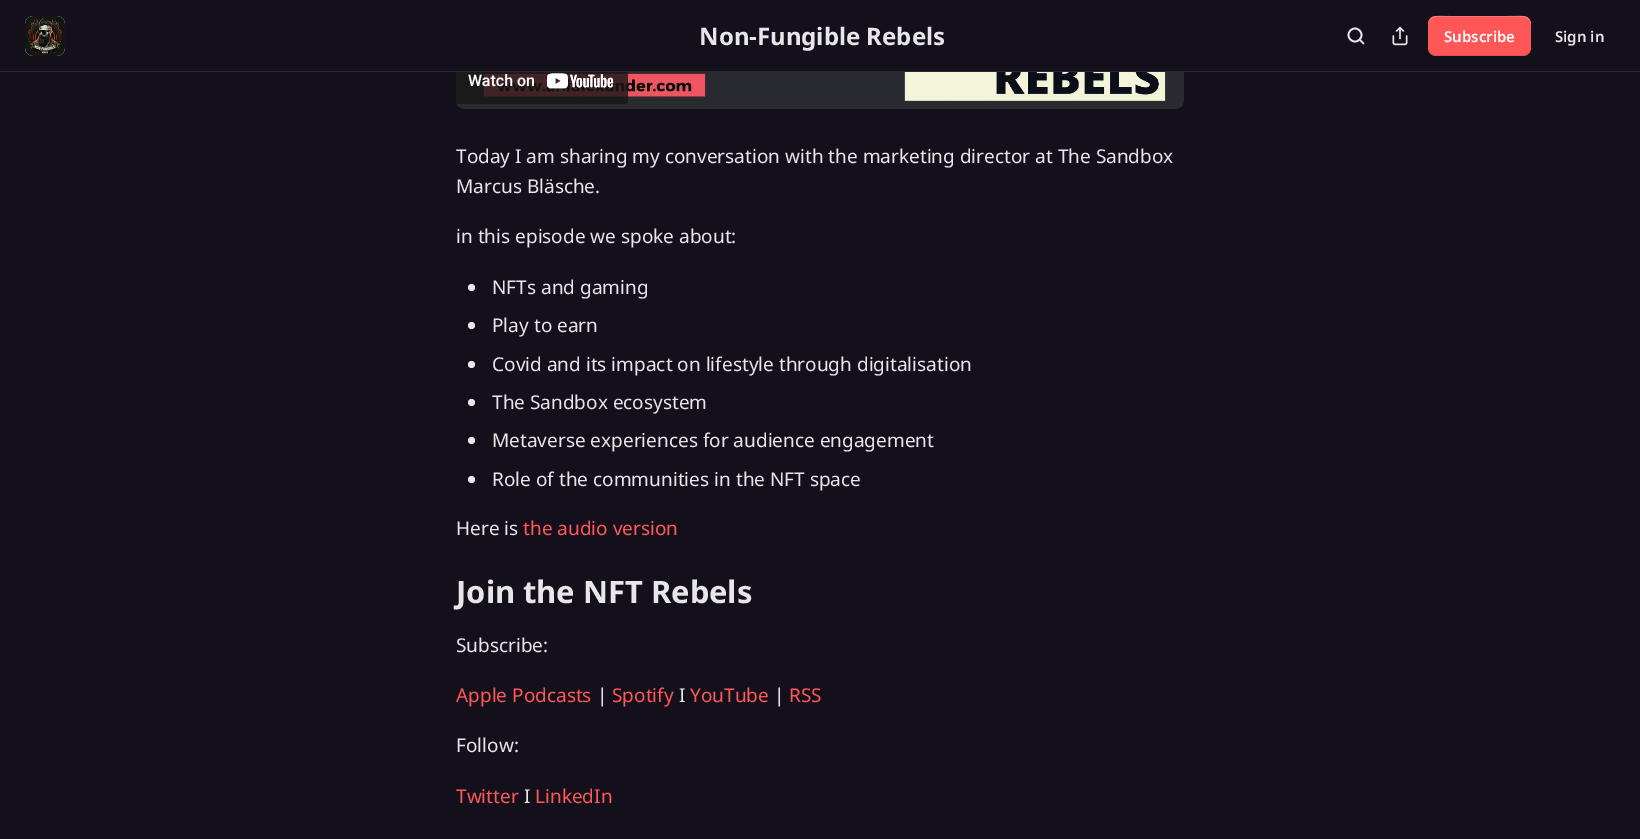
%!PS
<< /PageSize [1640 839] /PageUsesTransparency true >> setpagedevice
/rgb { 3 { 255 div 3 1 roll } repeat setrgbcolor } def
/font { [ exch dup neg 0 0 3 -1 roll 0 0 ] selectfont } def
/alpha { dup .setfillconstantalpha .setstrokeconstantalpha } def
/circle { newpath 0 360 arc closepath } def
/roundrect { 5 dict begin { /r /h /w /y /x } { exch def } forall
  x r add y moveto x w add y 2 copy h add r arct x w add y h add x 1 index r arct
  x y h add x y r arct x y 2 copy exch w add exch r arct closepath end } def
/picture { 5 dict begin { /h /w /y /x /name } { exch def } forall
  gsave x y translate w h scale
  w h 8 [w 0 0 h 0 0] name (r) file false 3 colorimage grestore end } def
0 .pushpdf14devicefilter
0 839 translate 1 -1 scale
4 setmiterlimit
20 16 27 rgb
0 0 1640 839 rectfill
43 40 50 rgb
0 71 1640 1 rectfill
255 255 255 rgb
25 16 40 40 8 roundrect fill
(img/1.rgb) 25 16 40 40 picture
231 230 233 rgb
1.7 setlinewidth
1355 35 6.5 circle stroke
1 setlinecap
1 setlinejoin
1363.5 43.5 moveto 1360 40 lineto stroke
(img/2.rgb) 1392 26 16 20 picture
255 87 87 rgb
1428 16 103 40 8 roundrect fill
0.1 alpha
0 0 0 rgb
1428 47 moveto 1428 59 1442 56 1450 56 curveto 1508 56 lineto 1517 56 1531 59 1531 47 curveto 1531 51 1527 55 1523 55 curveto 1436 55 lineto 1432 55 1428 51 1428 47 curveto closepath fill
0.2 alpha
255 255 255 rgb
1436 17 moveto 1523 17 lineto 1527 17 1531 21 1531 25 curveto 1531 13 1517 16 1508 16 curveto 1450 16 lineto 1442 16 1428 13 1428 25 curveto 1428 21 1432 17 1436 17 curveto closepath fill
1 alpha
(img/3.rgb) 456 72 728 37 picture
231 230 233 rgb
471.5 287.5 3.5 circle fill
471.5 325.5 3.5 circle fill
471.5 364.5 3.5 circle fill
471.5 402.5 3.5 circle fill
471.5 440.5 3.5 circle fill
471.5 479.5 3.5 circle fill
/NotoSans-Bold 24 font
699 45 moveto (Non-Fungible Rebels) show
/NotoSans-SemiBold 15 font
255 255 255 rgb
1444 42 moveto (Subscribe) show
231 230 233 rgb
1555 42 moveto (Sign in) show
/NotoSans-Regular 19 font
[
  [(Today I am sharing my conversation with the marketing director at The Sandbox) 456 163]
  [(Marcus Bläsche.) 456 193]
  [(in this episode we spoke about:) 456 243]
  [(NFTs and gaming) 492 294]
  [(Play to earn) 492 332]
  [(Covid and its impact on lifestyle through digitalisation) 492 371]
  [(The Sandbox ecosystem) 492 409]
  [(Metaverse experiences for audience engagement) 492 447]
  [(Role of the communities in the NFT space) 492 486]
  [(Here is) 456 535]
] { aload pop moveto show } forall
255 87 87 rgb
523 535 moveto (the audio version) show
/NotoSans-Bold 30.9 font
231 230 233 rgb
456 603 moveto (Join the NFT Rebels) show
/NotoSans-Regular 19 font
456 652 moveto (Subscribe:) show
255 87 87 rgb
456 702 moveto (Apple Podcasts) show
231 230 233 rgb
597 702 moveto (|) show
255 87 87 rgb
612 702 moveto (Spotify) show
231 230 233 rgb
679 702 moveto (I) show
255 87 87 rgb
690 702 moveto (YouTube) show
231 230 233 rgb
774 702 moveto (|) show
255 87 87 rgb
789 702 moveto (RSS) show
231 230 233 rgb
456 752 moveto (Follow:) show
255 87 87 rgb
456 803 moveto (Twitter) show
231 230 233 rgb
524 803 moveto (I) show
255 87 87 rgb
535 803 moveto (LinkedIn) show
.poppdf14devicefilter showpage
